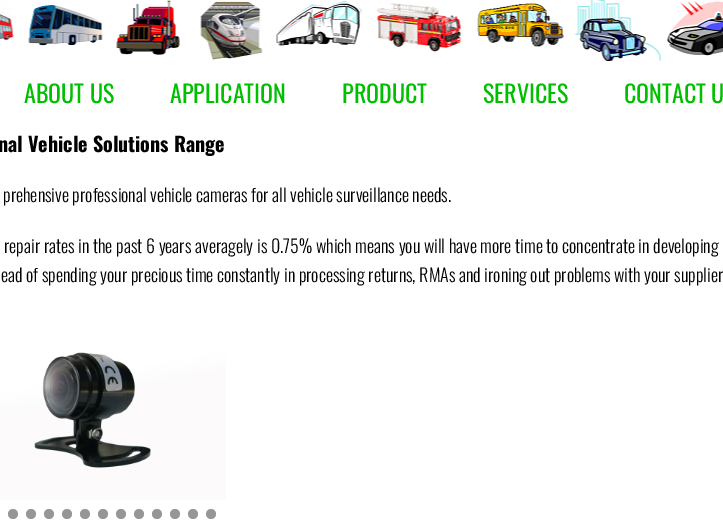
%!PS
<< /PageSize [723 521] >> setpagedevice
/rgb { 3 { 255 div 3 1 roll } repeat setrgbcolor } def
/font { [ exch dup neg 0 0 3 -1 roll 0 0 ] selectfont } def
/circle { newpath 0 360 arc closepath } def
/picture { 5 dict begin { /h /w /y /x /name } { exch def } forall
  gsave x y translate w h scale
  w h 8 [w 0 0 h 0 0] name (r) file false 3 colorimage grestore end } def
0 521 translate 1 -1 scale
4 setmiterlimit
255 255 255 rgb
0 0 723 521 rectfill
(img/1.rgb) 0 0 723 521 picture
(img/2.rgb) 0 352 226 148 picture
150 150 150 rgb
13 514 5 circle fill
31 514 5 circle fill
49 514 5 circle fill
67 514 5 circle fill
85 514 5 circle fill
103 514 5 circle fill
121 514 5 circle fill
139 514 5 circle fill
157 514 5 circle fill
175 514 5 circle fill
193 514 5 circle fill
211 514 5 circle fill
/Oswald-Regular 24 font
0 191 0 rgb
[
  [(ABOUT US) 24 103]
  [(APPLICATION) 170 103]
  [(PRODUCT) 342 103]
  [(SERVICES) 483 103]
  [(CONTACT U) 624 103]
] { aload pop moveto show } forall
/Oswald-Bold 20 font
0 0 0 rgb
-2 152 moveto (nal Vehicle Solutions Range) show
/Oswald-Light 18 font
[
  [(prehensive professional vehicle cameras for all vehicle surveillance needs.) 3 202]
  [(repair rates in the past 6 years averagely is 0.75% which means you will have more time to concentrate in developing) 4 253]
  [(ead of spending your precious time constantly in processing returns, RMAs and ironing out problems with your supplier) 1 282]
] { aload pop moveto show } forall
showpage
